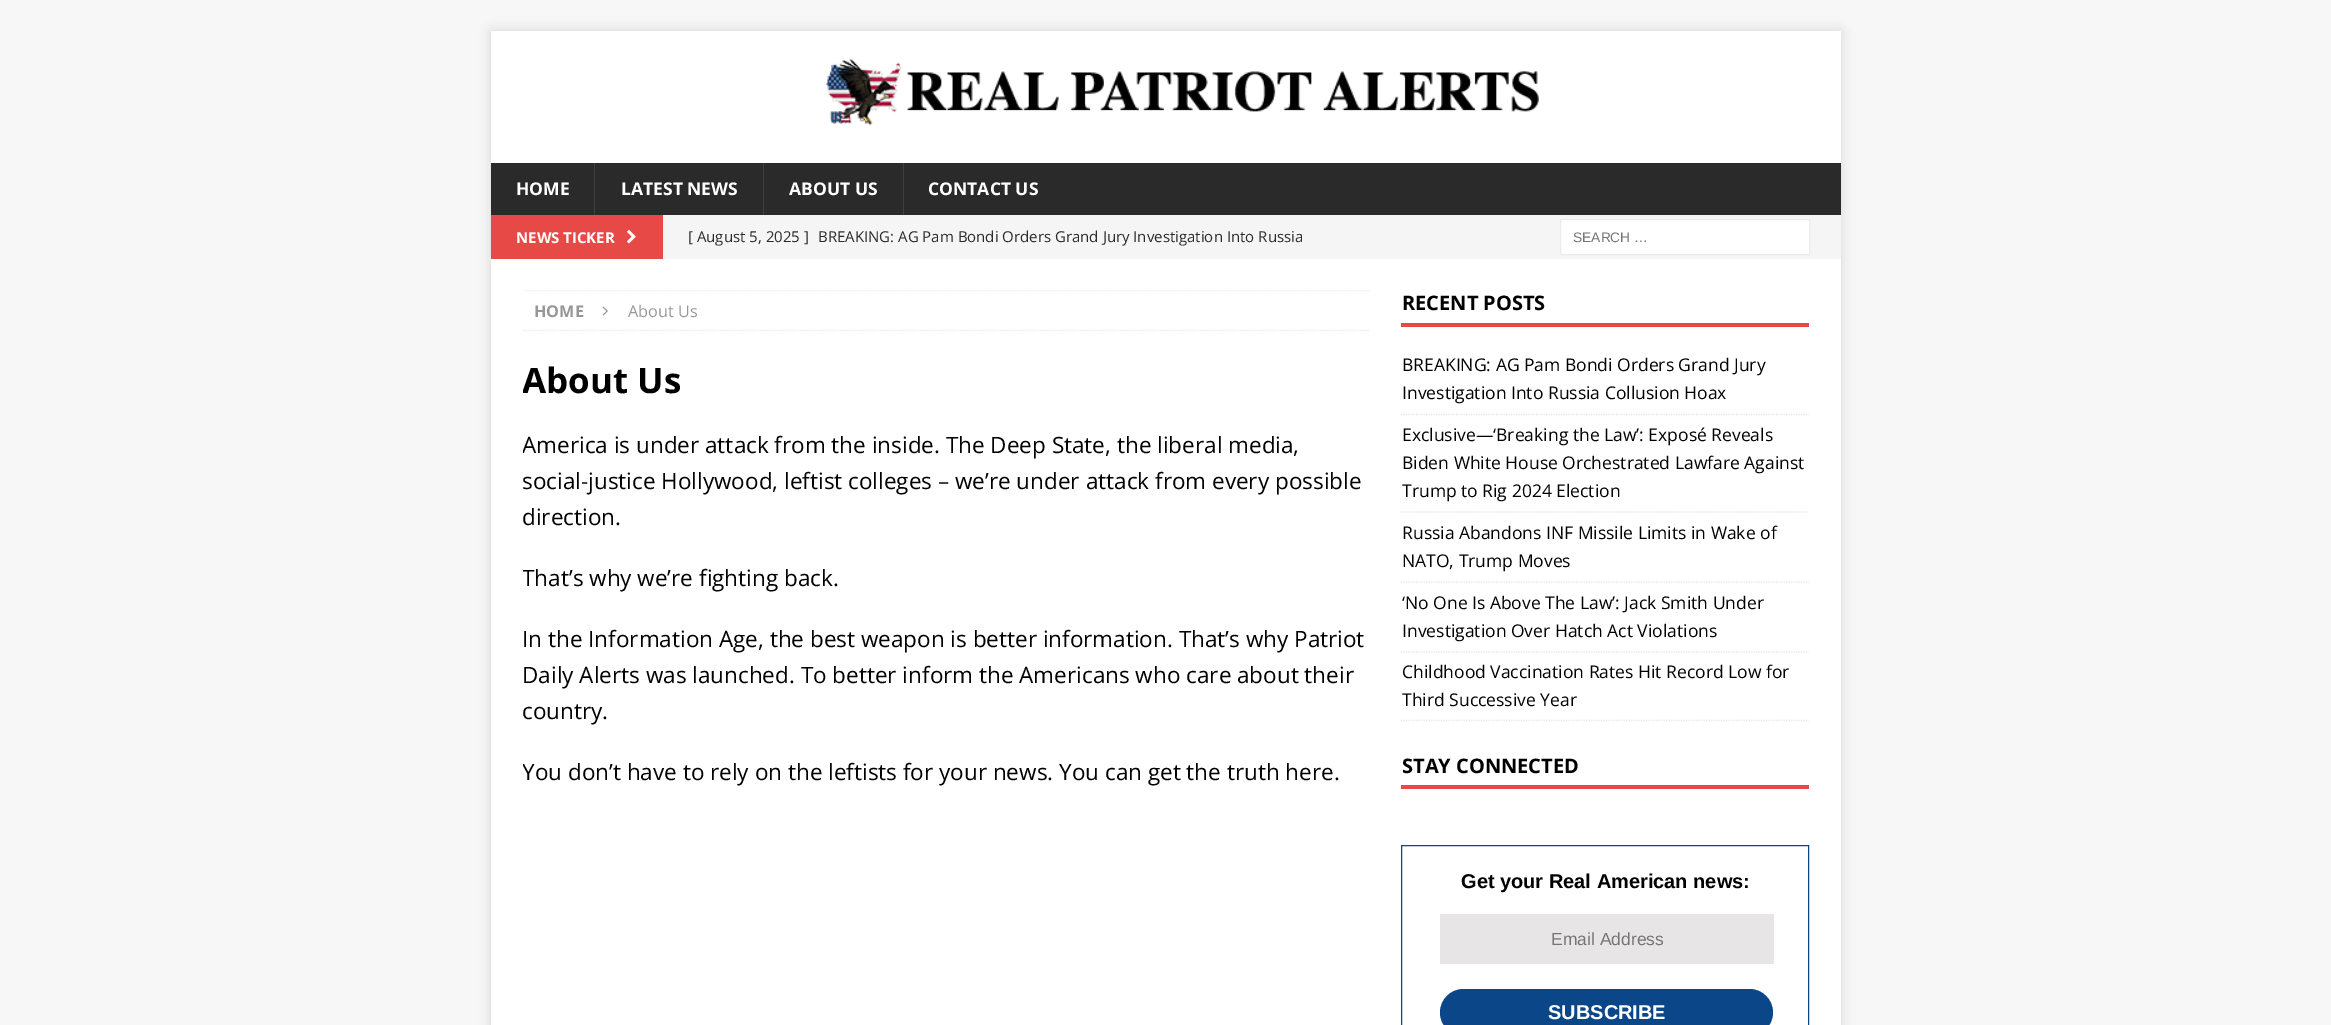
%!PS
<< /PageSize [2331 1025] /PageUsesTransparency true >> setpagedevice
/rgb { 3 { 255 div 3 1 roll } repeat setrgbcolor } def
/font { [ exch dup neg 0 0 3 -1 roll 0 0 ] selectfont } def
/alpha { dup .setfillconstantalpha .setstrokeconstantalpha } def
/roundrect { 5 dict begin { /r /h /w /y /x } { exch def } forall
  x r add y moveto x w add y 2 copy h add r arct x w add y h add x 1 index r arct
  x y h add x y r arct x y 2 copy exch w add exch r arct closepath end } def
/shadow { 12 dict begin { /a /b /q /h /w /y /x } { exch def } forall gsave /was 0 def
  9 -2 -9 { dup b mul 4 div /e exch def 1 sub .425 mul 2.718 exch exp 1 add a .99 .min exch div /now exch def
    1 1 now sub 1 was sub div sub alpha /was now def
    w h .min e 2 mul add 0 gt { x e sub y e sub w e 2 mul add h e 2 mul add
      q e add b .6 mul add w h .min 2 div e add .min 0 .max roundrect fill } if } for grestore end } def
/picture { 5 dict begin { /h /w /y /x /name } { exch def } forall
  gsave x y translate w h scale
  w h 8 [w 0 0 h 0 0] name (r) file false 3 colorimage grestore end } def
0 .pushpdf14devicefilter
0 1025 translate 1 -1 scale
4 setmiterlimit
247 247 247 rgb
0 0 2331 1025 rectfill
50 50 50 rgb
491 31 1350 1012 0 6 0.17 shadow
255 255 255 rgb
491 31 1350 132 rectfill
(img/1.rgb) 826 58 713 68 picture
[
  [491 163 1350 52 42 42 42]
  [594 163 1 52 63 63 63]
  [763 163 1 52 63 63 63]
  [903 163 1 52 63 63 63]
  [663 215 1178 44 245 245 245]
  [491 215 172 44 230 73 70]
] { aload pop rgb rectfill } forall
(img/2.rgb) 627 229 9 15 picture
255 255 255 rgb
1560.5 219.5 moveto 1809.5 219.5 lineto 1809.5 254.5 lineto 1560.5 254.5 lineto closepath gsave fill grestore
235 235 235 rgb
stroke
255 255 255 rgb
491 259 1350 766 rectfill
gsave
523 290 847 525 rectclip
235 235 235 rgb
1.2 setlinewidth
[1.25 1.25] 0 setdash
522.5 290.5 moveto 1370 290.5 lineto stroke
grestore
235 235 235 rgb
1.2 setlinewidth
[1.25 1.25] 0 setdash
522.5 330.5 moveto 1370 330.5 lineto stroke
(img/3.rgb) 602 306 6 10 picture
230 73 70 rgb
1401 323 408 4 rectfill
229 229 229 rgb
1401 414.5 moveto 1809 414.5 lineto stroke
1401 512 moveto 1809 512 lineto stroke
1401 582 moveto 1809 582 lineto stroke
1401 652 moveto 1809 652 lineto stroke
gsave
1401 290 408 431 rectclip
1401 720.5 moveto 1809 720.5 lineto stroke
grestore
230 73 70 rgb
1401 785 408 4 rectfill
11 70 136 rgb
1 setlinewidth
[] 0 setdash
1401.5 845.5 407 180 rectstroke
231 229 230 rgb
1440 914 334 50 rectfill
11 70 136 rgb
1440 989 333 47 23.5 roundrect fill
/OpenSans-Bold 17.5 font
255 255 255 rgb
[
  [(HOME) 516 195]
  [(LATEST NEWS) 621 195]
  [(ABOUT US) 789 195]
  [(CONTACT US) 928 195]
] { aload pop moveto show } forall
/OpenSans-Bold 15 font
516 243 moveto (NEWS TICKER) show
/OpenSans-Regular 15 font
42 42 42 rgb
688 242 moveto ([ August 5, 2025 ]) show
818 242 moveto (BREAKING: AG Pam Bondi Orders Grand Jury Investigation Into Russia) show
/LiberationSans-Regular 13.75 font
117 117 117 rgb
1573 242 moveto (SEARCH …) show
/OpenSans-Bold 16.25 font
151 151 151 rgb
534 317 moveto (HOME) show
/OpenSans-Regular 16.25 font
628 317 moveto (About Us) show
gsave
523 290 847 525 rectclip
/OpenSans-Bold 35 font
0 0 0 rgb
522 393 moveto (About Us) show
/OpenSans-Regular 22.5 font
522 453 moveto (America is under attack from the inside. The Deep State, the liberal media,) show
grestore
/OpenSans-Regular 22.5 font
0 0 0 rgb
522 489 moveto (social-justice Hollywood, leftist colleges – we’re under attack from every possible) show
522 525 moveto (direction.) show
gsave
523 290 847 525 rectclip
522 586 moveto (That’s why we’re fighting back.) show
grestore
[
  [(In the Information Age, the best weapon is better information. That’s why Patriot) 522 647]
  [(Daily Alerts was launched. To better inform the Americans who care about their) 522 683]
  [(country.) 522 719]
] { aload pop moveto show } forall
gsave
523 290 847 525 rectclip
522 780 moveto (You don’t have to rely on the leftists for your news. You can get the truth here.) show
grestore
/OpenSans-Bold 20 font
1402 310 moveto (RECENT POSTS) show
/OpenSans-Regular 17.5 font
[
  [(BREAKING: AG Pam Bondi Orders Grand Jury) 1402 371]
  [(Investigation Into Russia Collusion Hoax) 1402 399]
  [(Exclusive—‘Breaking the Law’: Exposé Reveals) 1402 441]
  [(Biden White House Orchestrated Lawfare Against) 1402 469]
  [(Trump to Rig 2024 Election) 1402 497]
  [(Russia Abandons INF Missile Limits in Wake of) 1402 539]
  [(NATO, Trump Moves) 1402 567]
  [(‘No One Is Above The Law’: Jack Smith Under) 1402 609]
  [(Investigation Over Hatch Act Violations) 1402 637]
  [(Childhood Vaccination Rates Hit Record Low for) 1402 678]
  [(Third Successive Year) 1402 706]
] { aload pop moveto show } forall
/OpenSans-Bold 20 font
1402 773 moveto (STAY CONNECTED) show
/LiberationSans-Bold 20 font
1461 888 moveto (Get your Real American news:) show
/LiberationSans-Regular 17.5 font
117 117 117 rgb
1551 945 moveto (Email Address) show
/LiberationSans-Bold 20 font
255 255 255 rgb
1548 1019 moveto (SUBSCRIBE) show
.poppdf14devicefilter showpage
